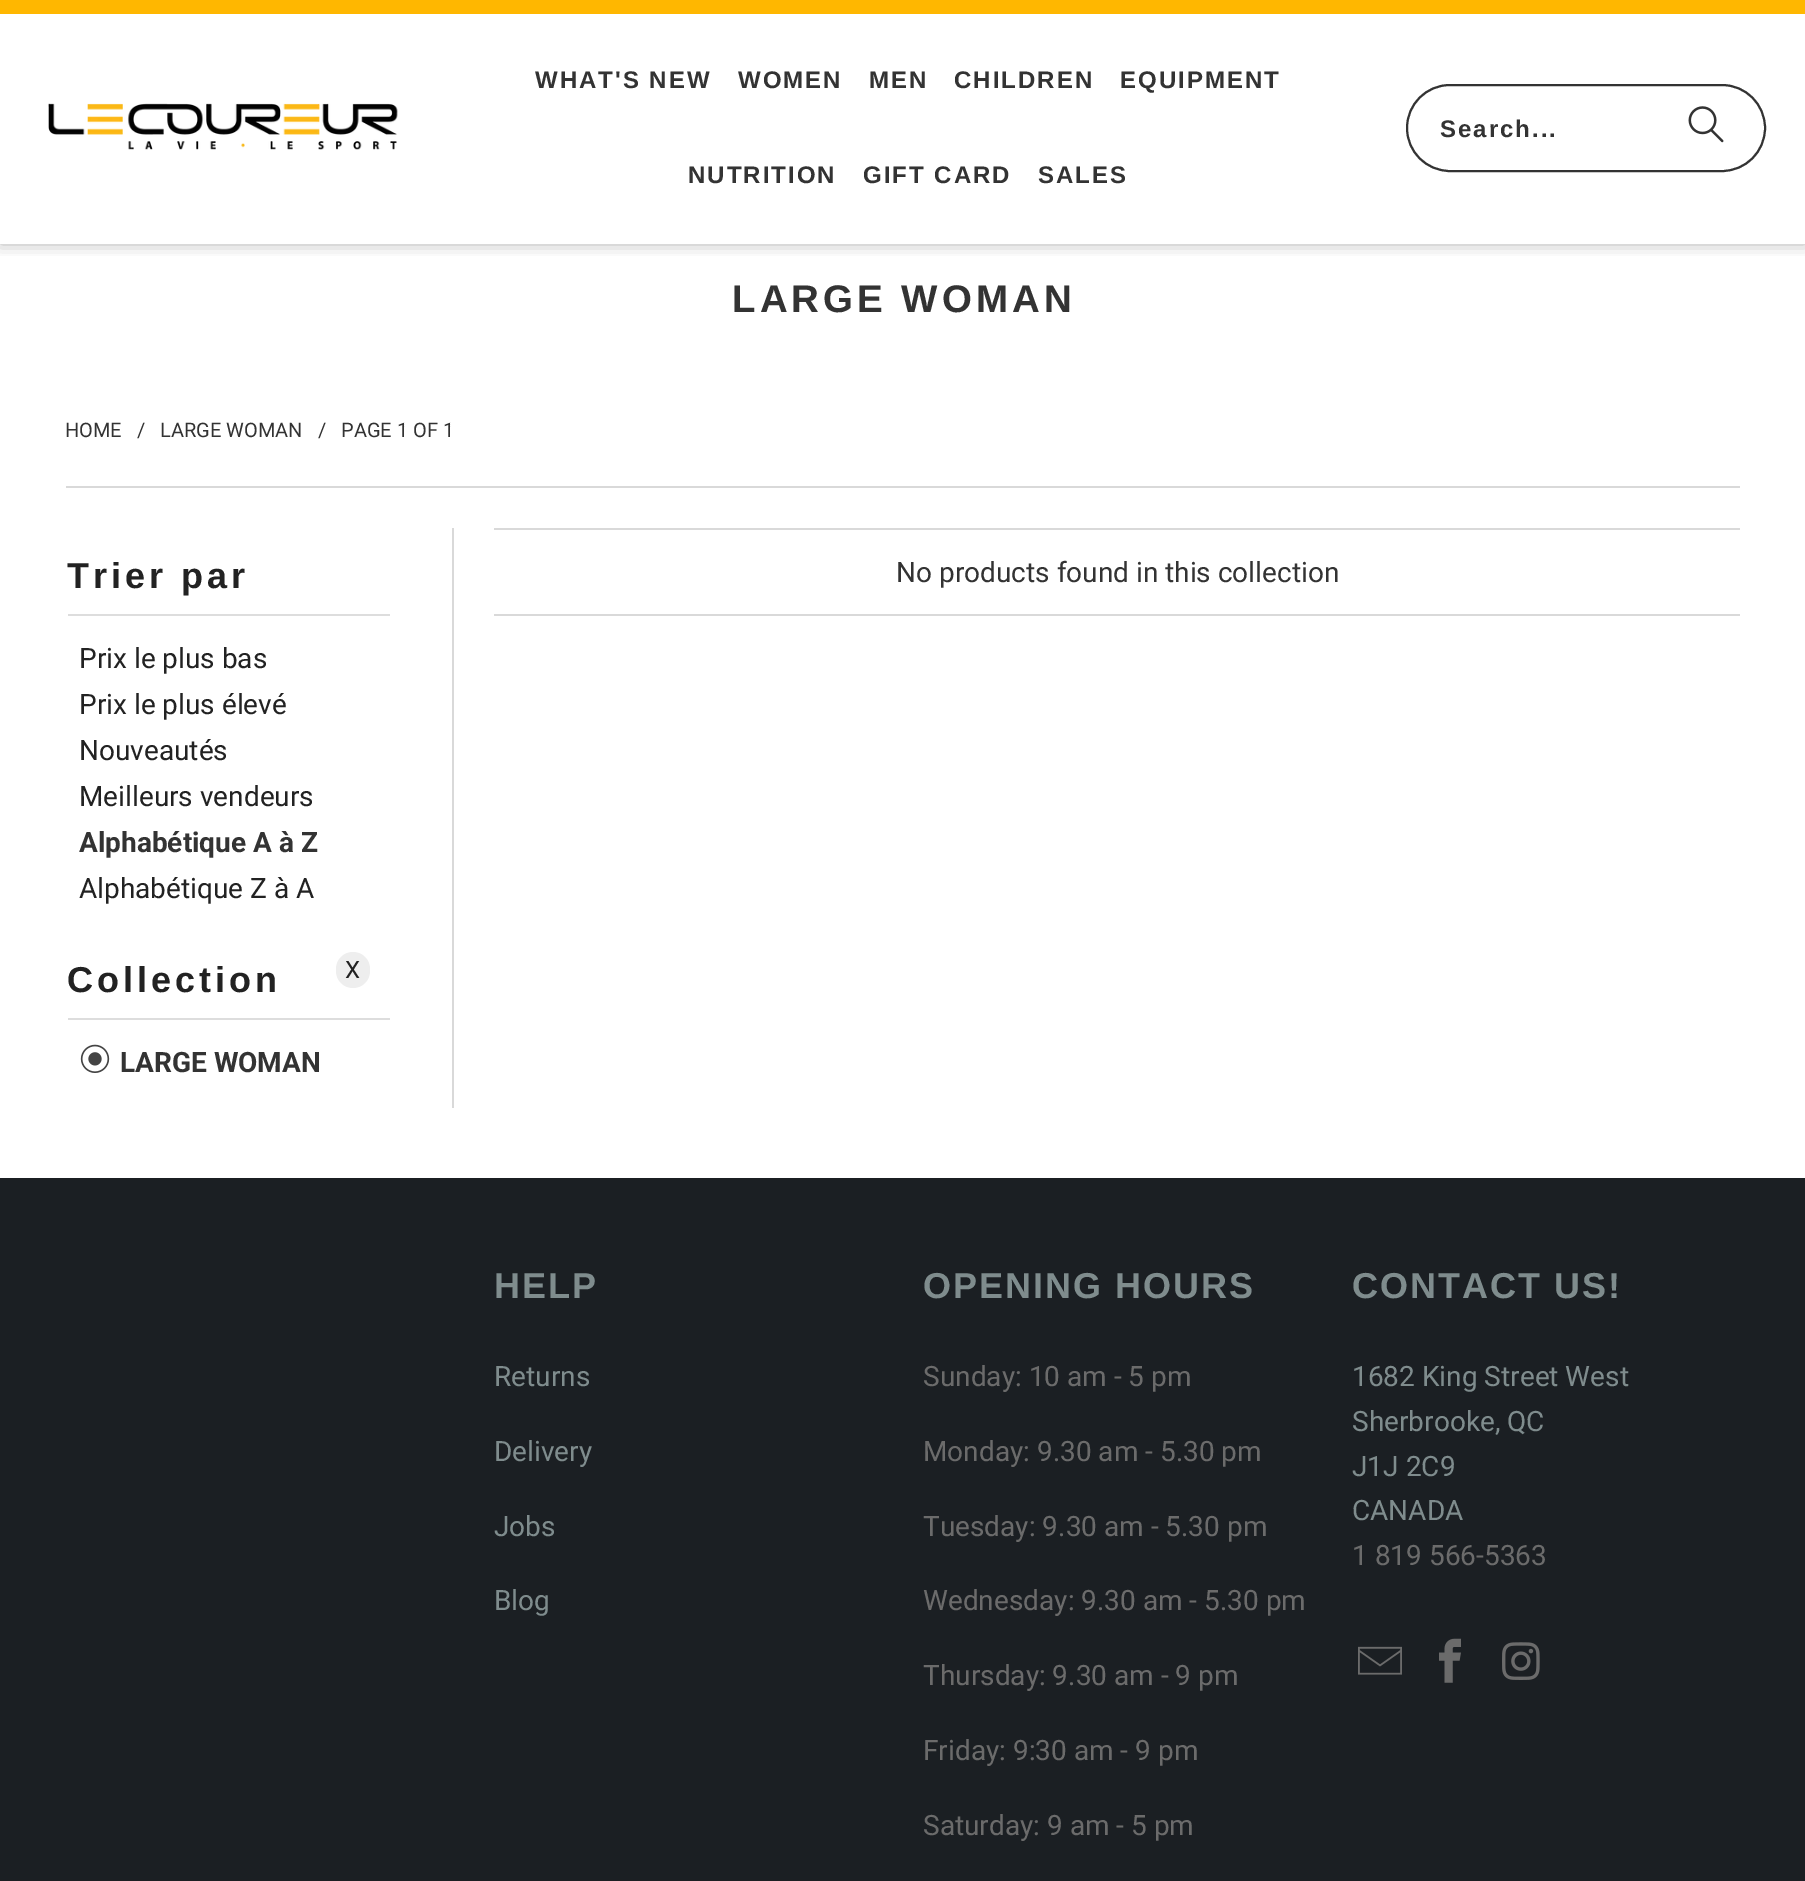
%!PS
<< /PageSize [1805 1881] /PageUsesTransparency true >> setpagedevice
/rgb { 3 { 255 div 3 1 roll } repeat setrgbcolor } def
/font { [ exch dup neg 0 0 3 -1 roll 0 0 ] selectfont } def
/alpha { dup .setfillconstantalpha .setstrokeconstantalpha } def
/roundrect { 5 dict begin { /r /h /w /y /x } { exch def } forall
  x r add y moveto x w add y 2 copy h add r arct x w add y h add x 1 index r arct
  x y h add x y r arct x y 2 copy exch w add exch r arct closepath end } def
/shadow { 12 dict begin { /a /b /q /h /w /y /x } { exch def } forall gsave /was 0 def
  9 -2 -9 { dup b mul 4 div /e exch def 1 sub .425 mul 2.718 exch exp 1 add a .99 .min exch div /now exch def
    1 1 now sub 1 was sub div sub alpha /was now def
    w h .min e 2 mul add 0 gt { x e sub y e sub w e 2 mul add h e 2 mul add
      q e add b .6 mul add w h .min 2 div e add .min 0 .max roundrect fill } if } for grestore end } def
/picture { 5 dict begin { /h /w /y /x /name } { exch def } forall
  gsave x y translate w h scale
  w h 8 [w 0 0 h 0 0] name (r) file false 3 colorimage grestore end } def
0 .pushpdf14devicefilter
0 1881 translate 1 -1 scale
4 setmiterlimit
255 255 255 rgb
0 0 1805 1881 rectfill
gsave
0 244 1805 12 rectclip
0 0 0 rgb
0 14 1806 230 0 8 0.3 shadow
grestore
255 183 0 rgb
0 0 1805 14 rectfill
(img/1.rgb) 48 103 350 47 picture
51 51 51 rgb
2 setlinewidth
1407 85 358 86 43 roundrect stroke
(img/2.rgb) 1688 106 36 37 picture
[
  [66 486 1674 2 217 217 217]
  [452 528 2 580 217 217 217]
  [68 614 322 2 221 221 221]
] { aload pop rgb rectfill } forall
238 238 238 rgb
336 952 34 36 17 roundrect fill
(img/3.rgb) 80 1044 30 29 picture
[
  [68 1018 322 2 221 221 221]
  [494 528 1246 2 217 217 217]
  [494 614 1246 2 217 217 217]
  [0 1178 1805 703 27 31 35]
] { aload pop rgb rectfill } forall
(img/4.rgb) 1358 1646 44 29 picture
(img/5.rgb) 1439 1638 22 45 picture
(img/6.rgb) 1502 1642 38 38 picture
/Arimo-Bold 24 font
51 51 51 rgb
535 88 moveto 2 0 (WHAT'S NEW) ashow
738 88 moveto 2 0 (WOMEN) ashow
869 88 moveto 2 0 (MEN) ashow
954 88 moveto 2 0 (CHILDREN) ashow
1120 88 moveto 2 0 (EQUIPMENT) ashow
688 183 moveto 2 0 (NUTRITION) ashow
863 183 moveto 2 0 (GIFT CARD) ashow
1038 183 moveto 2 0 (SALES) ashow
1440 137 moveto 2 0 (Search...) ashow
/Arimo-Bold 38.5 font
732 312 moveto 4 0 (LARGE WOMAN) ashow
/Roboto-Regular 20 font
[
  [(HOME) 65 437]
  [(/) 137 437]
  [(LARGE WOMAN) 160 437]
  [(/) 318 437]
  [(PAGE 1 OF 1) 341 437]
] { aload pop moveto show } forall
/Arimo-Bold 36 font
34 34 34 rgb
67 588 moveto 4 0 (Trier par) ashow
/Roboto-Regular 28 font
[
  [(Prix le plus bas) 79 668]
  [(Prix le plus élevé) 79 714]
  [(Nouveautés) 79 760]
  [(Meilleurs vendeurs) 79 806]
] { aload pop moveto show } forall
/Roboto-Bold 28 font
51 51 51 rgb
79 852 moveto (Alphabétique A à Z) show
/Roboto-Regular 28 font
34 34 34 rgb
79 898 moveto (Alphabétique Z à A) show
/Roboto-Regular 24 font
345 978 moveto (X) show
/Roboto-Bold 28 font
51 51 51 rgb
120 1072 moveto (LARGE WOMAN) show
/Arimo-Bold 36 font
34 34 34 rgb
67 992 moveto 4 0 (Collection) ashow
/Roboto-Regular 28 font
51 51 51 rgb
896 582 moveto (No products found in this collection) show
/Arimo-Bold 36 font
127 140 141 rgb
494 1298 moveto 2 0 (HELP) ashow
/Roboto-Regular 28 font
[
  [(Returns) 494 1386]
  [(Delivery) 494 1461]
  [(Jobs) 494 1536]
  [(Blog) 494 1610]
] { aload pop moveto show } forall
/Arimo-Bold 36 font
923 1298 moveto 2 0 (OPENING HOURS) ashow
/Roboto-Regular 28 font
107 107 107 rgb
[
  [(Sunday: 10 am - 5 pm) 923 1386]
  [(Monday: 9.30 am - 5.30 pm) 923 1461]
  [(Tuesday: 9.30 am - 5.30 pm) 923 1536]
  [(Wednesday: 9.30 am - 5.30 pm) 923 1610]
  [(Thursday: 9.30 am - 9 pm) 923 1685]
  [(Friday: 9:30 am - 9 pm) 923 1760]
  [(Saturday: 9 am - 5 pm) 923 1835]
] { aload pop moveto show } forall
/Arimo-Bold 36 font
127 140 141 rgb
1352 1298 moveto 2 0 (CONTACT US!) ashow
/Roboto-Regular 28 font
[
  [(1682 King Street West) 1352 1386]
  [(Sherbrooke, QC) 1352 1431]
  [(J1J 2C9) 1352 1476]
  [(CANADA) 1352 1520]
] { aload pop moveto show } forall
107 107 107 rgb
1352 1565 moveto (1 819 566-5363) show
.poppdf14devicefilter showpage
